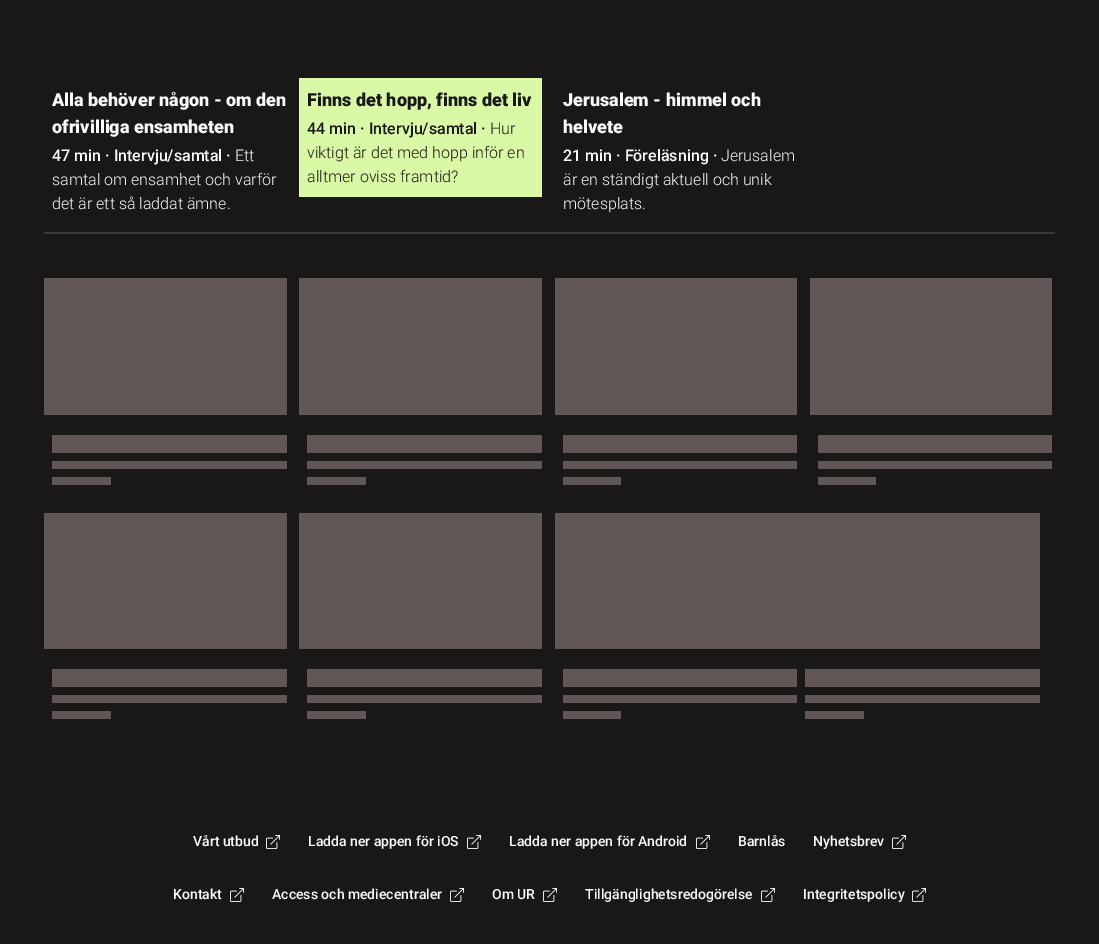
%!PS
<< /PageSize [1099 944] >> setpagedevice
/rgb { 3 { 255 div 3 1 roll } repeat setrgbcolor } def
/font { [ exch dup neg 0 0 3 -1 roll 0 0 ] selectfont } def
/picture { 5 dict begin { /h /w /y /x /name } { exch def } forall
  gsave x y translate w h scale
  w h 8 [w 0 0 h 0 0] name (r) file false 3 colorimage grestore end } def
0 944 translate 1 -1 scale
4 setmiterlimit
26 23 23 rgb
0 0 1099 944 rectfill
[
  [44 232 1011 2 61 54 54]
  [299 78 243 119 217 249 166]
  [44 278 243 137 97 86 86]
  [52 435 235 18 97 86 86]
  [52 461 235 8 97 86 86]
  [52 477 59 8 97 86 86]
  [299 278 243 137 97 86 86]
  [307 435 235 18 97 86 86]
  [307 461 235 8 97 86 86]
  [307 477 59 8 97 86 86]
  [555 278 242 137 97 86 86]
  [563 435 234 18 97 86 86]
  [563 461 234 8 97 86 86]
  [563 477 58 8 97 86 86]
  [810 278 242 137 97 86 86]
  [818 435 234 18 97 86 86]
  [818 461 234 8 97 86 86]
  [818 477 58 8 97 86 86]
  [44 513 243 136 97 86 86]
  [52 669 235 18 97 86 86]
  [52 695 235 8 97 86 86]
  [52 711 59 8 97 86 86]
  [299 513 243 136 97 86 86]
  [307 669 235 18 97 86 86]
  [307 695 235 8 97 86 86]
  [307 711 59 8 97 86 86]
  [555 513 485 136 97 86 86]
  [563 669 234 18 97 86 86]
  [563 695 234 8 97 86 86]
  [563 711 58 8 97 86 86]
  [805 669 235 18 97 86 86]
  [805 695 235 8 97 86 86]
  [805 711 59 8 97 86 86]
] { aload pop rgb rectfill } forall
(img/1.rgb) 266 835 14 14 picture
(img/1.rgb) 467 835 14 14 picture
(img/1.rgb) 696 835 14 14 picture
(img/1.rgb) 892 835 14 14 picture
(img/1.rgb) 230 888 14 14 picture
(img/1.rgb) 450 888 14 14 picture
(img/1.rgb) 543 888 14 14 picture
(img/1.rgb) 761 888 14 14 picture
(img/1.rgb) 912 888 14 14 picture
/Roboto-Black 18 font
250 250 250 rgb
52 106 moveto (Alla behöver någon - om den) show
52 133 moveto (ofrivilliga ensamheten) show
/Roboto-Medium 16 font
52 161 moveto (47 min · Intervju/samtal ·) show
/Roboto-Light 16 font
[
  [(Ett) 235 161]
  [(samtal om ensamhet och varför) 52 185]
  [(det är ett så laddat ämne.) 52 209]
] { aload pop moveto show } forall
/Roboto-Black 18 font
26 23 23 rgb
307 106 moveto (Finns det hopp, finns det liv) show
/Roboto-Medium 16 font
307 134 moveto (44 min · Intervju/samtal ·) show
/Roboto-Light 16 font
[
  [(Hur) 490 134]
  [(viktigt är det med hopp inför en) 307 158]
  [(alltmer oviss framtid?) 307 182]
] { aload pop moveto show } forall
/Roboto-Black 18 font
250 250 250 rgb
563 106 moveto (Jerusalem - himmel och) show
563 133 moveto (helvete) show
/Roboto-Medium 16 font
563 161 moveto (21 min · Föreläsning ·) show
/Roboto-Light 16 font
[
  [(Jerusalem) 721 161]
  [(är en ständigt aktuell och unik) 563 185]
  [(mötesplats.) 563 209]
] { aload pop moveto show } forall
/Roboto-Medium 14 font
[
  [(Vårt utbud) 193 846]
  [(Ladda ner appen för iOS) 308 846]
  [(Ladda ner appen för Android) 509 846]
  [(Barnlås) 738 846]
  [(Nyhetsbrev) 813 846]
  [(Kontakt) 173 899]
  [(Access och mediecentraler) 272 899]
  [(Om UR) 492 899]
  [(Tillgänglighetsredogörelse) 585 899]
  [(Integritetspolicy) 803 899]
] { aload pop moveto show } forall
showpage
